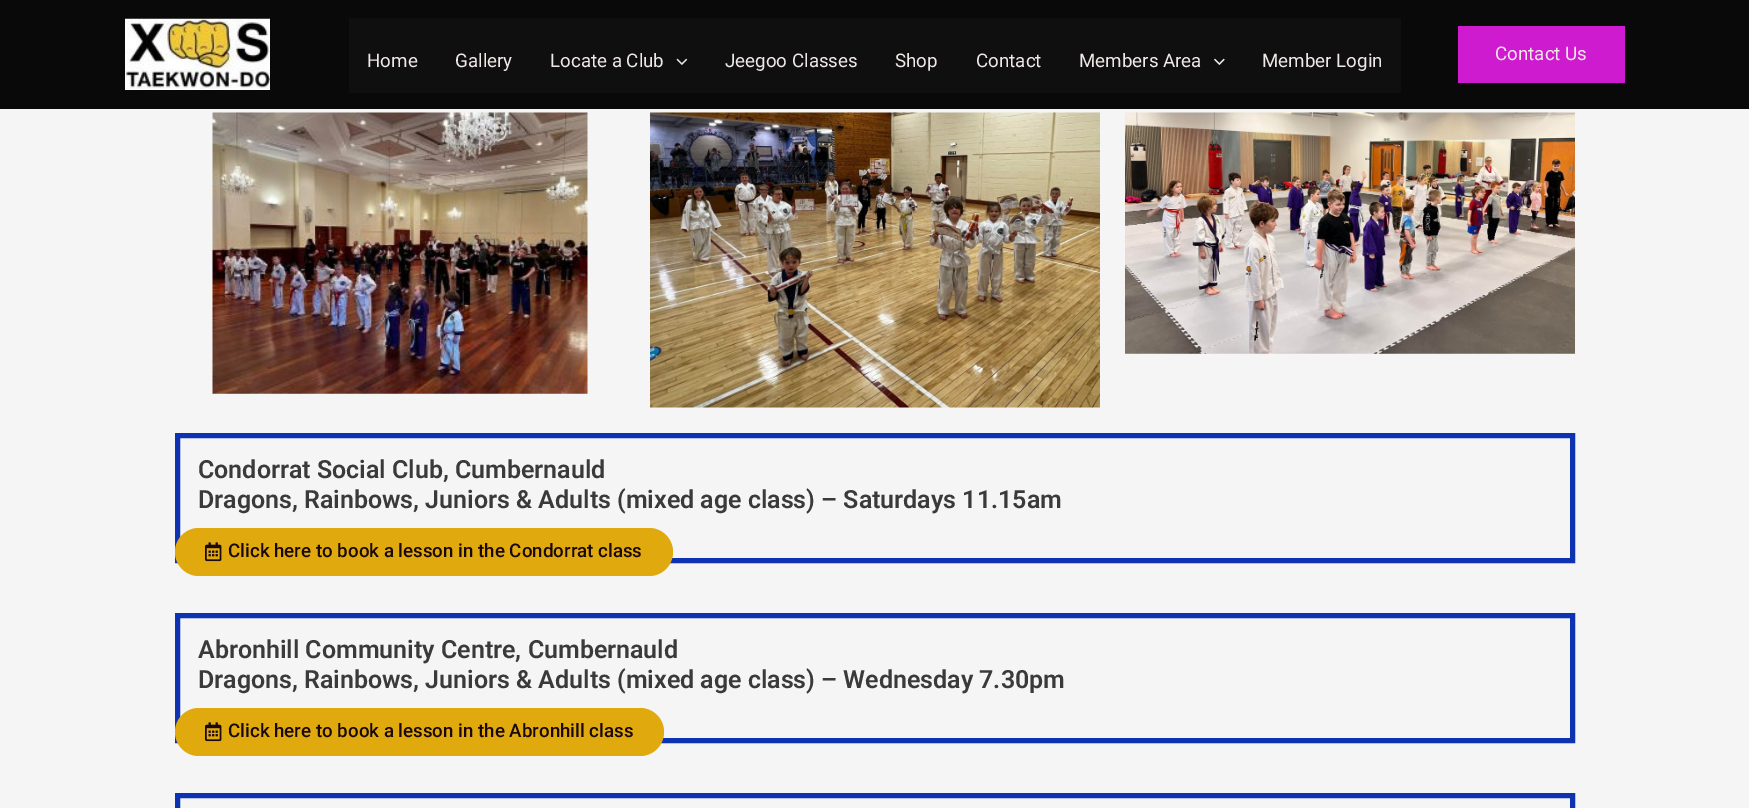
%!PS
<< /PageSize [1749 808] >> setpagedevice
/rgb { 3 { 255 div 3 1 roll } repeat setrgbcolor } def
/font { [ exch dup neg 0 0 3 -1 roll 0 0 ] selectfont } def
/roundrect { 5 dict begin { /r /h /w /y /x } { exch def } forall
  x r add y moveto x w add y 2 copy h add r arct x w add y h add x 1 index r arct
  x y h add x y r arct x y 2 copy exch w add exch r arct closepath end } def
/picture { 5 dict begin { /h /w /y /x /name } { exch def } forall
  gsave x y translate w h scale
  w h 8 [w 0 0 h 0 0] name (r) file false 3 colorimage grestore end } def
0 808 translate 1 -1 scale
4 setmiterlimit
245 245 245 rgb
0 0 1749 808 rectfill
10 9 9 rgb
0 0 1749 109 rectfill
(img/1.rgb) 125 18 145 72 picture
15 15 15 rgb
349 18 1052 75 rectfill
(img/2.rgb) 676 58 12 7 picture
(img/3.rgb) 1214 58 11 7 picture
207 27 208 rgb
1458 26 167 57 rectfill
(img/4.rgb) 212 112 376 282 picture
(img/5.rgb) 650 112 450 296 picture
(img/6.rgb) 1125 112 450 242 picture
13 51 179 rgb
5 setlinewidth
177.5 435.5 1395 125 rectstroke
224 170 14 rgb
175 528 498 48 24 roundrect fill
(img/7.rgb) 205 542 17 20 picture
13 51 179 rgb
177.5 615.5 1395 125 rectstroke
224 170 14 rgb
175 708 489 48 24 roundrect fill
(img/7.rgb) 205 722 17 20 picture
13 51 179 rgb
177.5 795.5 1395 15 rectstroke
/Roboto-Regular 18.75 font
241 232 232 rgb
[
  [(Home) 367 67]
  [(Gallery) 455 67]
  [(Locate a Club) 550 67]
  [(Jeegoo Classes) 725 67]
  [(Shop) 895 67]
  [(Contact) 976 67]
  [(Members Area) 1079 67]
  [(Member Login) 1262 67]
  [(Contact Us) 1495 60]
] { aload pop moveto show } forall
/Roboto-SemiBold 25 font
58 58 58 rgb
198 478 moveto (Condorrat Social Club, Cumbernauld) show
198 508 moveto (Dragons, Rainbows, Juniors & Adults \(mixed age class\) – Saturdays 11.15am) show
/Roboto-Medium 18.75 font
27 9 9 rgb
228 557 moveto (Click here to book a lesson in the Condorrat class) show
/Roboto-SemiBold 25 font
58 58 58 rgb
198 658 moveto (Abronhill Community Centre, Cumbernauld) show
198 688 moveto (Dragons, Rainbows, Juniors & Adults \(mixed age class\) – Wednesday 7.30pm) show
/Roboto-Medium 18.75 font
27 9 9 rgb
228 737 moveto (Click here to book a lesson in the Abronhill class) show
showpage
